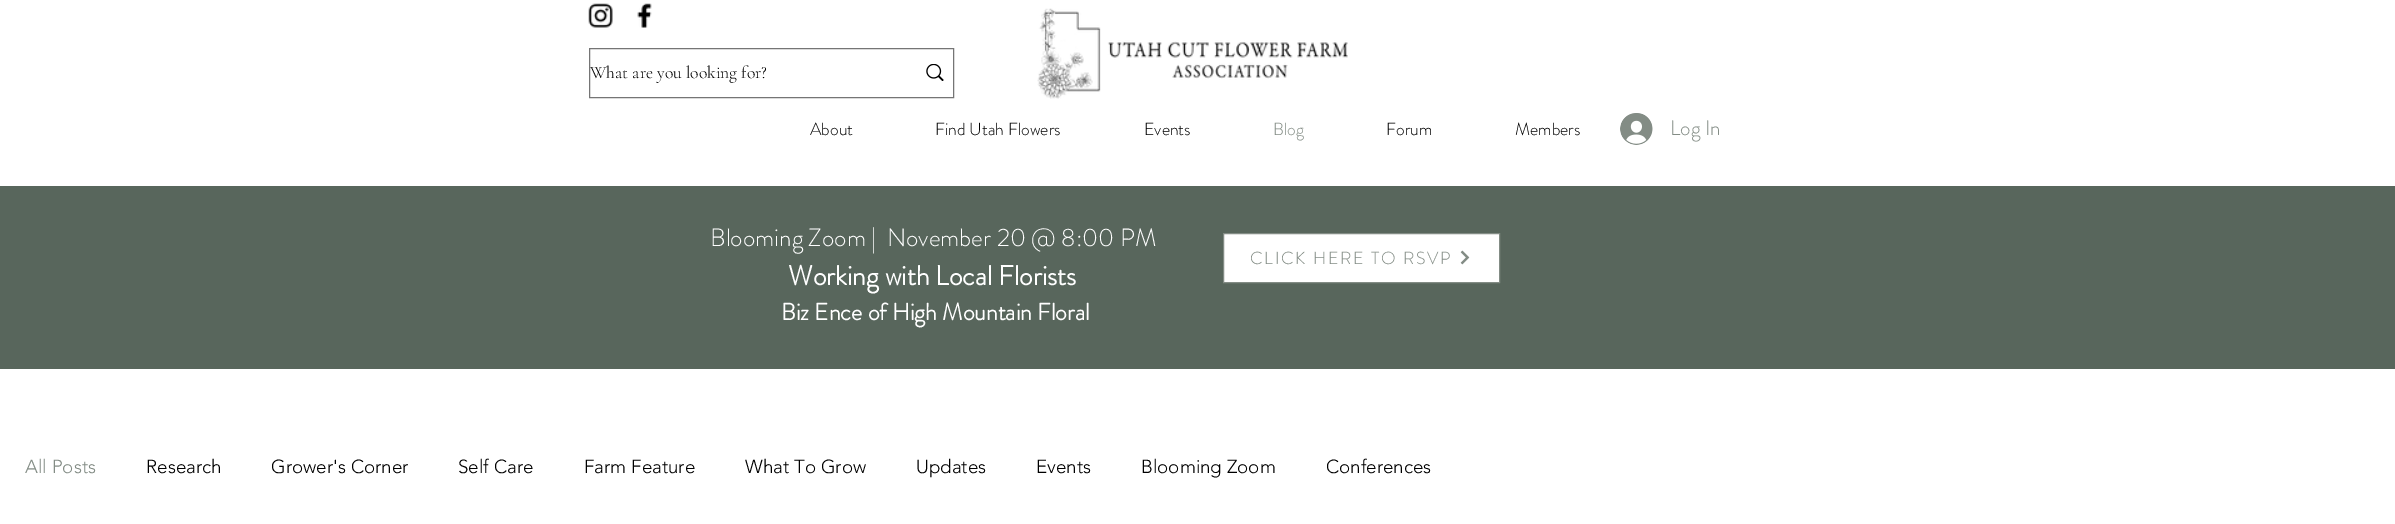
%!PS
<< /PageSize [2395 524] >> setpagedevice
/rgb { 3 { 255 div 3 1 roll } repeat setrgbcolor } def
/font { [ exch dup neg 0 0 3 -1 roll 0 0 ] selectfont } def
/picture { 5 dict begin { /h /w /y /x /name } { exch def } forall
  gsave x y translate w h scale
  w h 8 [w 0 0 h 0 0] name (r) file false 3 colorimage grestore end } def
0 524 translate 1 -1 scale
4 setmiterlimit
255 255 255 rgb
0 0 2395 524 rectfill
(img/1.rgb) 588 3 25 25 picture
(img/2.rgb) 637 3 15 25 picture
(img/3.rgb) 1037 8 311 91 picture
117 117 117 rgb
589.5 48.5 364 49 rectstroke
(img/4.rgb) 926 64 18 17 picture
(img/5.rgb) 1620 113 33 32 picture
88 102 92 rgb
0 186 2395 183 rectfill
255 255 255 rgb
1223.5 233.5 moveto 1499.5 233.5 lineto 1499.5 282.5 lineto 1223.5 282.5 lineto closepath gsave fill grestore
131 140 133 rgb
stroke
(img/6.rgb) 1460 250 10 15 picture
/CormorantGaramond-Light 17.5 font
0 0 0 rgb
590 78 moveto (What are you looking for?) show
/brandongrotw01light-Light 17.5 font
[
  [(About) 810 135]
  [(Find Utah Flowers) 935 135]
  [(Events) 1144 135]
] { aload pop moveto show } forall
131 140 133 rgb
1273 135 moveto (Blog) show
0 0 0 rgb
1386 135 moveto (Forum) show
1515 135 moveto (Members) show
/brandongrotw01light-Light 21 font
131 140 133 rgb
1670 135 moveto (Log In) show
/brandongrotw01light-Light 25 font
255 255 255 rgb
710 246 moveto (Blooming Zoom |  November 20 @ 8:00 PM) show
/brandongrotw01light-Bold 27.5 font
788 285 moveto (Working with Local Florists) show
/brandongrotw01light-Bold 23.75 font
781 320 moveto (Biz Ence of High Mountain Floral) show
/brandongrotw01light-Light 17.5 font
131 140 133 rgb
1250 264 moveto 1.75 0 (CLICK HERE TO RSVP) ashow
/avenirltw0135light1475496-Light 18.75 font
25 473 moveto (All Posts) show
0 0 0 rgb
[
  [(Research) 146 473]
  [(Grower's Corner) 271 473]
  [(Self Care) 458 473]
  [(Farm Feature) 584 473]
  [(What To Grow) 745 473]
  [(Updates) 916 473]
  [(Events) 1036 473]
  [(Blooming Zoom) 1141 473]
  [(Conferences) 1326 473]
] { aload pop moveto show } forall
showpage
